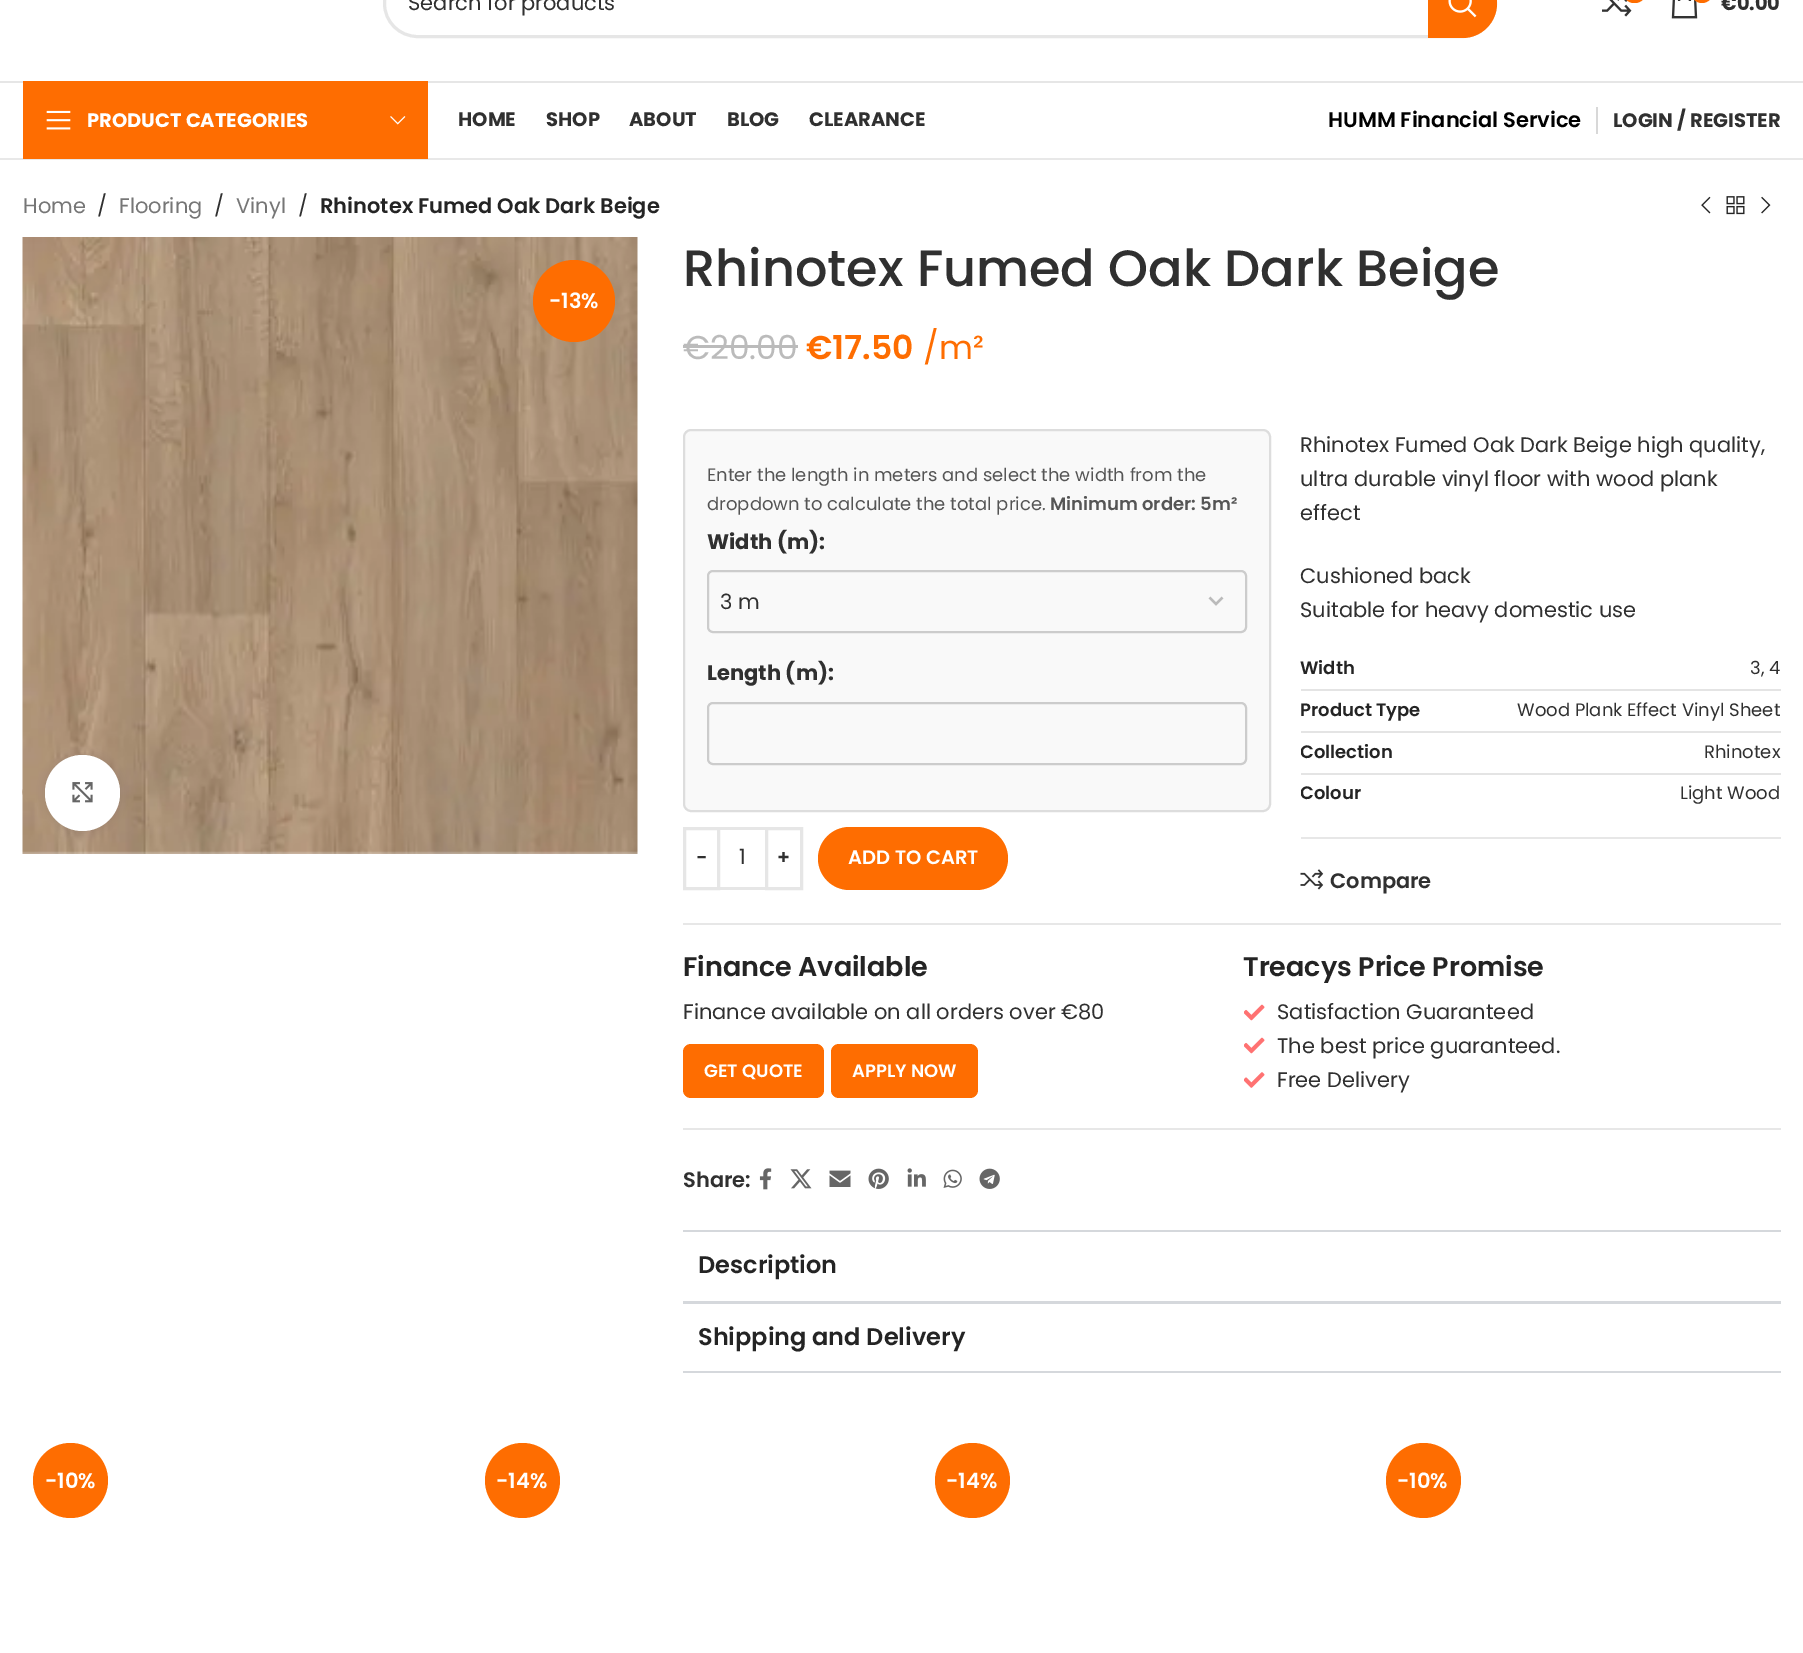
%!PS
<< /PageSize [1803 1653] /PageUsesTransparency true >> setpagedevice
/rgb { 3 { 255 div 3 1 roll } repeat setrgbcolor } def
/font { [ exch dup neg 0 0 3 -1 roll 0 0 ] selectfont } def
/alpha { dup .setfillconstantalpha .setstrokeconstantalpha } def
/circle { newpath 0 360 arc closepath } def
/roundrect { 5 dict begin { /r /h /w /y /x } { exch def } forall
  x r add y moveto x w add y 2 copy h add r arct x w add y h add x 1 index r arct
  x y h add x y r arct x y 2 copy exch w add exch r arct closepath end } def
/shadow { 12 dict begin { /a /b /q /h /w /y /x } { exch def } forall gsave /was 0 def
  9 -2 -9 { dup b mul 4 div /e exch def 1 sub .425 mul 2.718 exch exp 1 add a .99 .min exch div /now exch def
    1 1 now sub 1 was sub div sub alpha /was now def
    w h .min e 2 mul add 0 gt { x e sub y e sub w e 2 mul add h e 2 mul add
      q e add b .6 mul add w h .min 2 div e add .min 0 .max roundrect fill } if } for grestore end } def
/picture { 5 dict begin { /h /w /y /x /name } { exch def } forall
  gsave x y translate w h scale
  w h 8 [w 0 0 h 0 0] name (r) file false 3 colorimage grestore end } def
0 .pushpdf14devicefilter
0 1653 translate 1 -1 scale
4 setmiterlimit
255 255 255 rgb
0 0 1803 1653 rectfill
230 230 230 rgb
0 81 1803 2 rectfill
3 setlinewidth
384.5 -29.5 1111 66 33 roundrect stroke
254 109 1 rgb
1428 -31 moveto 1462.5 -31 lineto 1481.5 -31 1497 -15.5 1497 3.5 curveto 1497 22.5 1481.5 38 1462.5 38 curveto 1428 38 lineto closepath fill
(img/1.rgb) 1448 0 29 18 picture
(img/2.rgb) 1602 0 30 17 picture
1623 -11 23 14 11 roundrect fill
(img/3.rgb) 1671 0 27 19 picture
1691 -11 22 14 11 roundrect fill
232 232 232 rgb
0 158 1803 2 rectfill
254 109 1 rgb
23 81 405 78 rectfill
(img/4.rgb) 46 110 25 20 picture
(img/5.rgb) 390 116 16 9 picture
216 216 216 rgb
1596 107 2 27 rectfill
(img/6.rgb) 1701 196 10 18 picture
(img/7.rgb) 1726 196 19 19 picture
(img/8.rgb) 1761 196 10 18 picture
(img/9.rgb) 22 237 616 617 picture
254 109 1 rgb
574 301 41 circle fill
0 0 0 rgb
45 755 75 76 37.5 4 0.08 shadow
255 255 255 rgb
45 755 75 76 37.5 roundrect fill
175 148 118 rgb
1.5 setlinewidth
27 801 moveto 22 796 22 788 27 783 curveto stroke
(img/10.rgb) 72 782 21 21 picture
187 187 187 rgb
683 345 115 3 rectfill
249 249 249 rgb
684 430 586 381 7 roundrect gsave fill grestore
221 221 221 rgb
2 setlinewidth
stroke
187 187 187 rgb
2.2 setlinewidth
1209.5 597.5 moveto 1216 604 lineto 1222.5 597.5 lineto stroke
204 204 204 rgb
2 setlinewidth
708 571 538 61 5 roundrect stroke
708 703 538 61 5 roundrect stroke
230 230 230 rgb
3 setlinewidth
684.5 828.5 34 60 rectstroke
720 827 45 3 rectfill
720 887 45 3 rectfill
766.5 828.5 35 60 rectstroke
254 109 1 rgb
818 827 190 63 31.5 roundrect fill
[
  [1301 689 480 2 228 228 228]
  [1301 731 480 2 228 228 228]
  [1301 773 480 2 228 228 228]
  [1301 837 480 2 231 231 231]
] { aload pop rgb rectfill } forall
(img/11.rgb) 1300 869 24 21 picture
683 923 1098 2 rectfill
254 109 1 rgb
683 1044 141 54 8 roundrect fill
831 1044 147 54 8 roundrect fill
(img/12.rgb) 1244 1004 21 17 picture
(img/12.rgb) 1244 1037 21 17 picture
(img/13.rgb) 1244 1072 21 16 picture
231 231 231 rgb
683 1128 1098 2 rectfill
(img/14.rgb) 759 1168 13 22 picture
(img/15.rgb) 790 1169 22 20 picture
(img/16.rgb) 829 1170 22 17 picture
(img/17.rgb) 868 1168 21 21 picture
(img/18.rgb) 907 1168 19 19 picture
(img/19.rgb) 943 1169 19 19 picture
(img/20.rgb) 979 1168 21 21 picture
[
  [683 1230 1098 2 213 216 220]
  [683 1301 1098 3 213 216 220]
  [683 1371 1098 2 213 216 220]
] { aload pop rgb rectfill } forall
254 109 1 rgb
70.5 1480.5 37.5 circle fill
522.5 1480.5 37.5 circle fill
972.5 1480.5 37.5 circle fill
1423.5 1480.5 37.5 circle fill
/Poppins-Regular 21 font
48 48 48 rgb
408 10 moveto (Search for products) show
/Poppins-Bold 19.5 font
1721 10 moveto (€0.00) show
255 255 255 rgb
87 127 moveto (PRODUCT CATEGORIES) show
48 48 48 rgb
[
  [(HOME) 458 126]
  [(SHOP) 546 126]
  [(ABOUT) 629 126]
  [(BLOG) 727 126]
  [(CLEARANCE) 809 126]
] { aload pop moveto show } forall
/Poppins-SemiBold 21 font
0 0 0 rgb
1328 127 moveto (HUMM Financial Service) show
/Poppins-Bold 19.5 font
48 48 48 rgb
1613 127 moveto (LOGIN / REGISTER) show
/Poppins-Regular 21 font
118 118 118 rgb
23 213 moveto (Home) show
48 48 48 rgb
97 213 moveto (/) show
118 118 118 rgb
119 213 moveto (Flooring) show
48 48 48 rgb
214 213 moveto (/) show
118 118 118 rgb
236 213 moveto (Vinyl) show
48 48 48 rgb
298 213 moveto (/) show
/Poppins-SemiBold 21 font
36 36 36 rgb
320 213 moveto (Rhinotex Fumed Oak Dark Beige) show
255 255 255 rgb
549 308 moveto (-13%) show
/Poppins-Medium 51 font
48 48 48 rgb
683 286 moveto (Rhinotex Fumed Oak Dark Beige) show
/Poppins-Regular 33 font
187 187 187 rgb
683 359 moveto (€20.00) show
/Poppins-SemiBold 33 font
254 109 1 rgb
806 359 moveto (€17.50) show
/Poppins-Regular 33 font
923 359 moveto (/m²) show
/Poppins-Regular 18 font
85 85 85 rgb
707 481 moveto (Enter the length in meters and select the width from the) show
707 510 moveto (dropdown to calculate the total price.) show
/Poppins-SemiBold 18 font
1050 510 moveto (Minimum order: 5m²) show
/Poppins-Bold 21 font
48 48 48 rgb
707 549 moveto (Width \(m\):) show
/Poppins-Regular 21 font
720 609 moveto (3 m) show
/Poppins-Bold 21 font
707 680 moveto (Length \(m\):) show
/Poppins-SemiBold 19.5 font
696 864 moveto (-) show
/Poppins-Regular 21 font
739 864 moveto (1) show
/Poppins-SemiBold 19.5 font
777 864 moveto (+) show
255 255 255 rgb
848 864 moveto (ADD TO CART) show
/Poppins-Regular 21 font
48 48 48 rgb
[
  [(Rhinotex Fumed Oak Dark Beige high quality,) 1300 452]
  [(ultra durable vinyl floor with wood plank) 1300 486]
  [(effect) 1300 520]
  [(Cushioned back) 1300 583]
  [(Suitable for heavy domestic use) 1300 617]
] { aload pop moveto show } forall
/Poppins-SemiBold 18 font
36 36 36 rgb
1300 674 moveto (Width) show
/Poppins-Regular 18 font
48 48 48 rgb
1750 674 moveto (3, 4) show
/Poppins-SemiBold 18 font
36 36 36 rgb
1300 716 moveto (Product Type) show
/Poppins-Regular 18 font
48 48 48 rgb
1517 716 moveto (Wood Plank Effect Vinyl Sheet) show
gsave
1301 657 480 150 rectclip
/Poppins-SemiBold 18 font
36 36 36 rgb
1300 758 moveto (Collection) show
grestore
1704 758 moveto (Rhinotex) show
gsave
1301 657 480 150 rectclip
/Poppins-SemiBold 18 font
36 36 36 rgb
1300 799 moveto (Colour) show
grestore
1680 799 moveto (Light Wood) show
/Poppins-SemiBold 21 font
1330 888 moveto (Compare) show
/Poppins-SemiBold 27 font
36 36 36 rgb
683 976 moveto (Finance Available) show
/Poppins-Regular 21 font
48 48 48 rgb
683 1019 moveto (Finance available on all orders over €80) show
/Poppins-SemiBold 18 font
255 255 255 rgb
704 1077 moveto (GET QUOTE) show
852 1077 moveto (APPLY NOW) show
/Poppins-SemiBold 27 font
36 36 36 rgb
1243 976 moveto (Treacys Price Promise) show
/Poppins-Regular 21 font
48 48 48 rgb
[
  [(Satisfaction Guaranteed) 1277 1019]
  [(The best price guaranteed.) 1277 1053]
  [(Free Delivery) 1277 1087]
] { aload pop moveto show } forall
/Poppins-SemiBold 21 font
683 1187 moveto (Share:) show
/Poppins-SemiBold 24 font
36 36 36 rgb
698 1273 moveto (Description) show
698 1345 moveto (Shipping and Delivery) show
/Poppins-SemiBold 21 font
255 255 255 rgb
[
  [(-10%) 45 1488]
  [(-14%) 496 1488]
  [(-14%) 946 1488]
  [(-10%) 1397 1488]
] { aload pop moveto show } forall
.poppdf14devicefilter showpage
